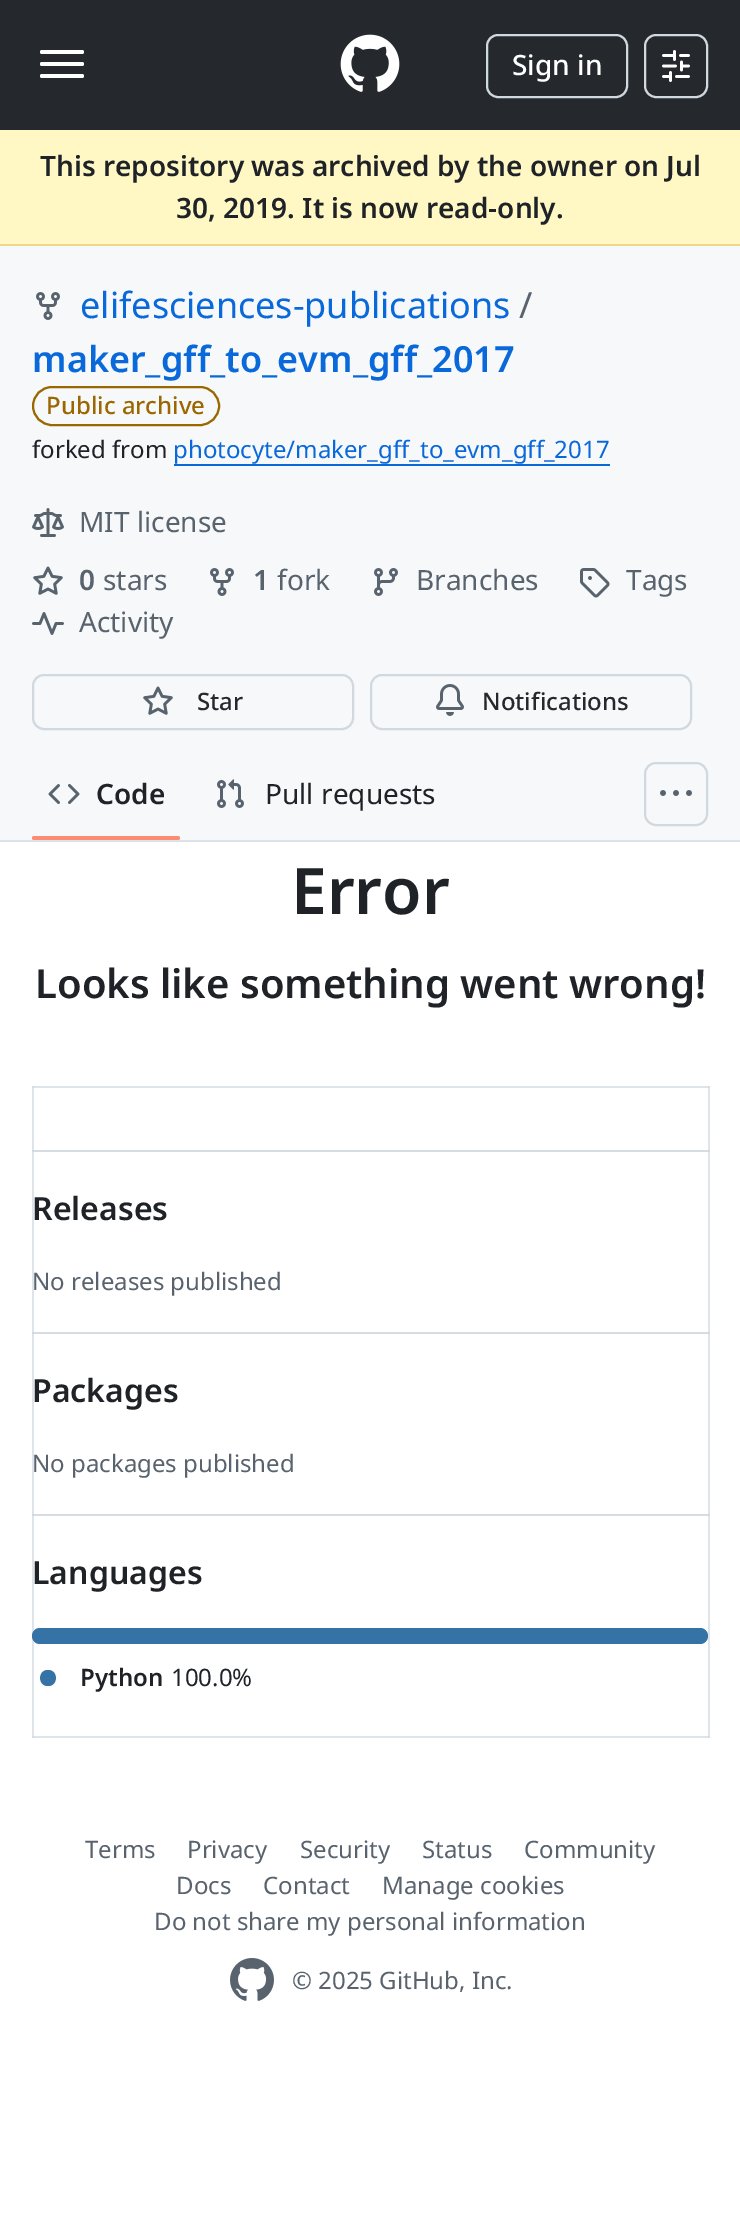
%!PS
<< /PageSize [740 2223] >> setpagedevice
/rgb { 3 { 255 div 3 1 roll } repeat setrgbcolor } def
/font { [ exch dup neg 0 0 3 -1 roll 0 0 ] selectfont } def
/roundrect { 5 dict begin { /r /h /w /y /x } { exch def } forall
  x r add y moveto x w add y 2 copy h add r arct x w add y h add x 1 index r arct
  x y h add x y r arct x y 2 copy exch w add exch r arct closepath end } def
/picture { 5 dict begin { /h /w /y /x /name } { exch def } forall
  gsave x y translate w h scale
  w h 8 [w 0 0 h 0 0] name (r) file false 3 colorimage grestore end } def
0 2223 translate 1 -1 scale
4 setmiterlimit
255 255 255 rgb
0 0 740 2223 rectfill
[
  [32 1086 2 652 223 228 233]
  [708 1086 2 430 223 228 233]
  [32 1736 678 2 223 228 233]
  [32 1736 2 2 213 220 227]
  [708 1514 2 224 223 228 233]
  [708 1736 2 2 213 220 227]
  [0 0 740 130 37 41 46]
] { aload pop rgb rectfill } forall
255 255 255 rgb
40 50 44 4 2 roundrect fill
40 62 44 4 2 roundrect fill
40 74 44 4 2 roundrect fill
(img/1.rgb) 340 34 60 58 picture
209 217 224 rgb
2 setlinewidth
487 35 140 62 11 roundrect stroke
645 35 62 62 11 roundrect stroke
(img/2.rgb) 662 50 28 32 picture
[
  [0 130 740 114 255 248 197]
  [0 244 740 2 238 216 136]
  [0 246 740 594 246 248 250]
] { aload pop rgb rectfill } forall
(img/3.rgb) 36 292 24 28 picture
154 103 0 rgb
33 387 186 38 19 roundrect stroke
9 105 218 rgb
174 464 436 2 rectfill
(img/4.rgb) 32 508 32 29 picture
(img/5.rgb) 33 566 30 29 picture
(img/3.rgb) 210 568 24 28 picture
(img/6.rgb) 374 568 24 28 picture
(img/7.rgb) 580 568 30 30 picture
(img/8.rgb) 32 612 32 23 picture
209 217 224 rgb
33 675 320 54 11 roundrect stroke
(img/5.rgb) 143 686 30 29 picture
371 675 320 54 11 roundrect stroke
(img/9.rgb) 436 684 28 32 picture
220 226 232 rgb
0 840 740 2 rectfill
(img/10.rgb) 48 784 32 20 picture
253 140 115 rgb
32 836 148 4 2 roundrect fill
(img/11.rgb) 217 779 27 29 picture
209 217 224 rgb
645 763 62 62 11 roundrect stroke
(img/12.rgb) 660 790 32 6 picture
[
  [32 1086 678 2 223 228 233]
  [32 1086 2 2 213 220 227]
  [708 1086 2 2 213 220 227]
  [32 1150 678 2 213 220 227]
  [32 1150 2 2 209 217 224]
  [708 1150 2 2 209 217 224]
  [32 1332 678 2 213 220 227]
  [32 1332 2 2 209 217 224]
  [708 1332 2 2 209 217 224]
  [32 1514 678 2 213 220 227]
  [32 1514 2 2 209 217 224]
  [708 1514 2 2 209 217 224]
] { aload pop rgb rectfill } forall
53 114 165 rgb
32 1628 676 16 8 roundrect fill
48 1670 moveto 58.5 1670 58.5 1686 48 1686 curveto 37.5 1686 37.5 1670 48 1670 curveto closepath fill
(img/13.rgb) 230 1958 44 43 picture
/NotoSans-Medium 28 font
255 255 255 rgb
512 75 moveto (Sign in) show
/NotoSans-SemiBold 28 font
31 35 40 rgb
40 176 moveto (This repository was archived by the owner on Jul) show
176 218 moveto (30, 2019. It is now read-only.) show
/NotoSans-Regular 36 font
9 105 218 rgb
80 318 moveto (elifesciences-publications) show
89 99 110 rgb
519 318 moveto (/) show
/NotoSans-SemiBold 36 font
9 105 218 rgb
32 372 moveto (maker_gff_to_evm_gff_2017) show
/NotoSans-Medium 24 font
154 103 0 rgb
46 414 moveto (Public archive) show
/NotoSans-Regular 24 font
31 35 40 rgb
32 458 moveto (forked from) show
9 105 218 rgb
173 458 moveto (photocyte/maker_gff_to_evm_gff_2017) show
/NotoSans-Regular 28 font
89 99 110 rgb
79 532 moveto (MIT license) show
/NotoSans-SemiBold 28 font
79 590 moveto (0) show
/NotoSans-Regular 28 font
103 590 moveto (stars) show
/NotoSans-SemiBold 28 font
253 590 moveto (1) show
/NotoSans-Regular 28 font
[
  [(fork) 277 590]
  [(Branches) 416 590]
  [(Tags) 626 590]
  [(Activity) 79 632]
] { aload pop moveto show } forall
/NotoSans-Medium 24 font
37 41 46 rgb
197 710 moveto (Star) show
482 710 moveto (Notifications) show
/NotoSans-SemiBold 28 font
31 35 40 rgb
96 804 moveto (Code) show
/NotoSans-Regular 28 font
265 804 moveto (Pull requests) show
/NotoSans-SemiBold 64 font
291 914 moveto (Error) show
/NotoSans-SemiBold 40 font
35 998 moveto (Looks like something went wrong!) show
/NotoSans-SemiBold 32 font
32 1220 moveto (Releases) show
/NotoSans-Regular 24 font
89 99 110 rgb
32 1290 moveto (No releases published) show
/NotoSans-SemiBold 32 font
31 35 40 rgb
32 1402 moveto (Packages) show
/NotoSans-Regular 24 font
89 99 110 rgb
32 1472 moveto (No packages published) show
/NotoSans-SemiBold 32 font
31 35 40 rgb
32 1584 moveto (Languages) show
/NotoSans-SemiBold 24 font
80 1686 moveto (Python) show
/NotoSans-Regular 24 font
171 1686 moveto (100.0%) show
89 99 110 rgb
[
  [(Terms) 85 1858]
  [(Privacy) 187 1858]
  [(Security) 300 1858]
  [(Status) 422 1858]
  [(Community) 524 1858]
  [(Docs) 176 1894]
  [(Contact) 263 1894]
  [(Manage cookies) 382 1894]
  [(Do not share my personal information) 154 1930]
  [(© 2025 GitHub, Inc.) 292 1989]
] { aload pop moveto show } forall
showpage
